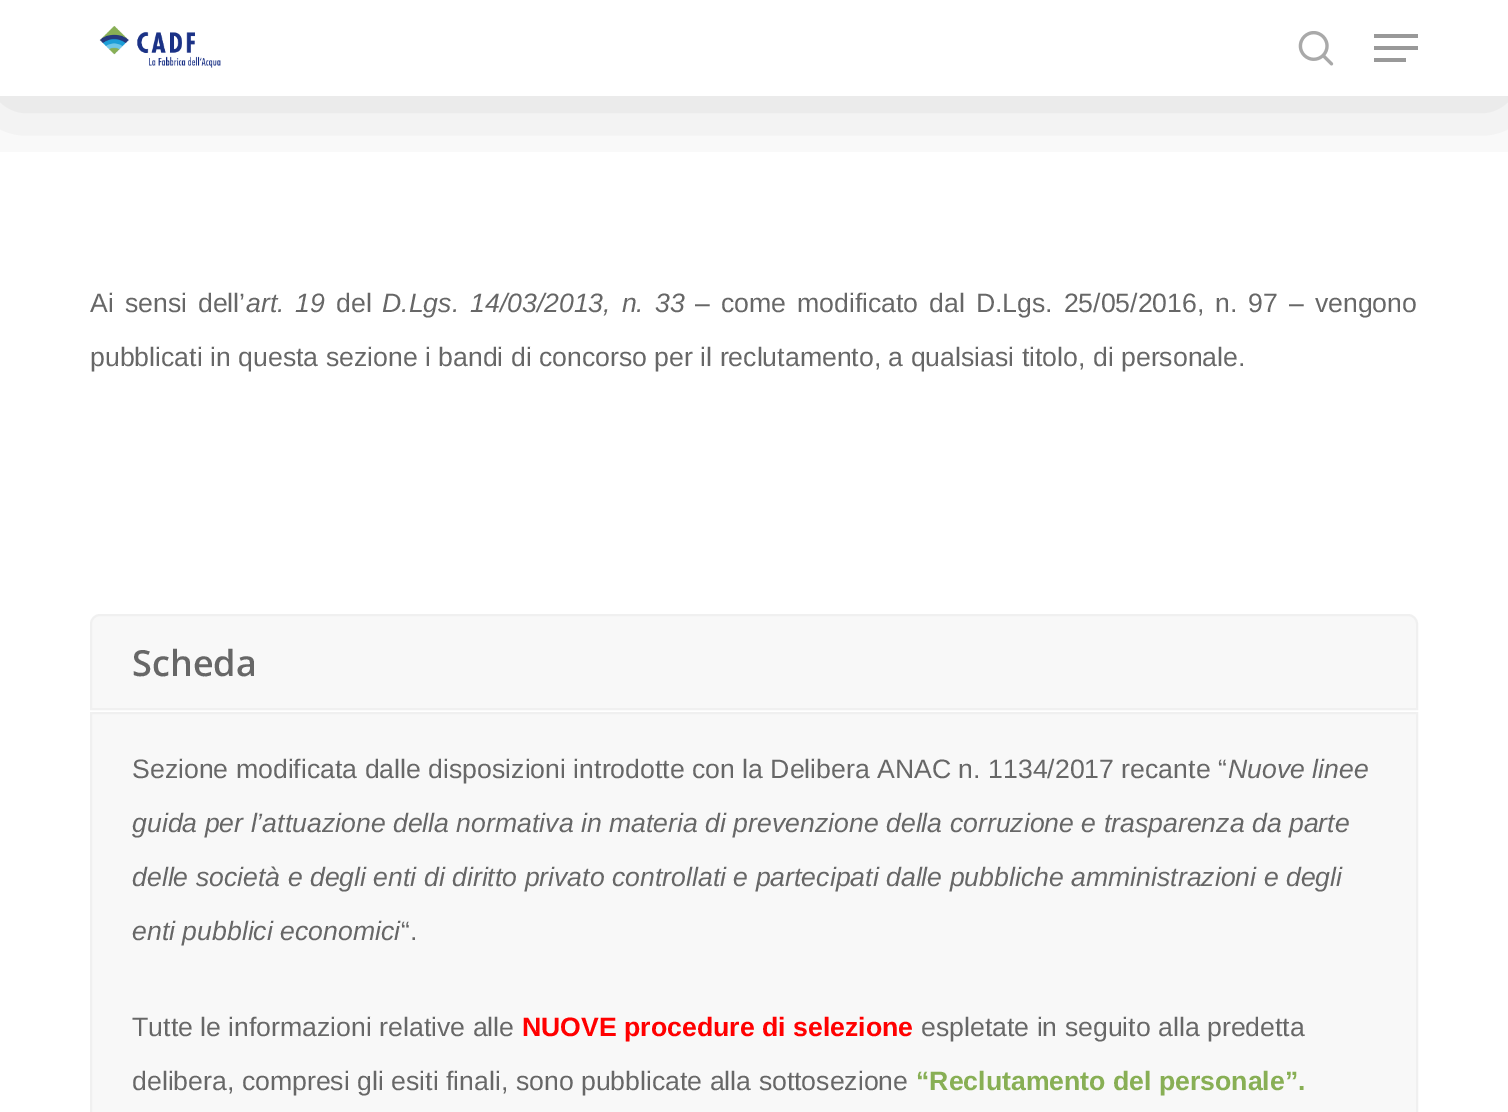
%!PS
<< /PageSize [1508 1112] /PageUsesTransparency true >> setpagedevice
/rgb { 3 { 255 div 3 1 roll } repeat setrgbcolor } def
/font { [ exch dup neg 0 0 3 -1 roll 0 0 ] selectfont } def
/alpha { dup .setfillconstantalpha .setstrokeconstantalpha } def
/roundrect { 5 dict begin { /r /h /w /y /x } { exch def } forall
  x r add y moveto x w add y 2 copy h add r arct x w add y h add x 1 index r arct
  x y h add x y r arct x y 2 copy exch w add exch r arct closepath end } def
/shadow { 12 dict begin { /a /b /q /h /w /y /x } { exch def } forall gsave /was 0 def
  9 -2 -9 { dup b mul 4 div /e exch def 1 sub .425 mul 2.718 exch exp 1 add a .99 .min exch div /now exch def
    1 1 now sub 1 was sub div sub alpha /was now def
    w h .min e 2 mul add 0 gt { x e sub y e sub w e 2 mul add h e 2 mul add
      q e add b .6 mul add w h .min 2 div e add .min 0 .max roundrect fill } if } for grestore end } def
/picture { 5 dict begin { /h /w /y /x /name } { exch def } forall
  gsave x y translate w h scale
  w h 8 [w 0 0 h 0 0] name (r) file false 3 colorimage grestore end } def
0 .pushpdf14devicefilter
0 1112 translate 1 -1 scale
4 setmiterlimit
255 255 255 rgb
0 0 1508 1112 rectfill
gsave
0 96 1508 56 rectclip
0 0 0 rgb
0 6 1508 96 0 45 0.15 shadow
grestore
(img/1.rgb) 99 26 122 42 picture
(img/2.rgb) 1298 31 36 35 picture
[
  [1374 34 44 4 153 153 153]
  [1374 58 32 4 153 153 153]
  [1374 46 44 4 153 153 153]
] { aload pop rgb rectfill } forall
248 248 248 rgb
100 615 moveto 1408 615 lineto 1413 615 1417 619 1417 624 curveto 1417 709 lineto 91 709 lineto 91 624 lineto 91 619 95 615 100 615 curveto closepath gsave fill grestore
240 240 240 rgb
2 setlinewidth
stroke
248 248 248 rgb
91 713 moveto 1417 713 lineto 1417 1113 lineto 91 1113 lineto closepath gsave fill grestore
240 240 240 rgb
stroke
/LiberationSans-Regular 26.65 font
103 103 103 rgb
90 312 moveto 3.5 0 32 (Ai sensi dell’) widthshow
/LiberationSans-Italic 26.65 font
246 312 moveto 3.5 0 32 (art. 19) widthshow
/LiberationSans-Regular 26.65 font
336 312 moveto (del) show
/LiberationSans-Italic 26.65 font
382 312 moveto 3.5 0 32 (D.Lgs. 14/03/2013, n. 33) widthshow
/LiberationSans-Regular 26.65 font
695 312 moveto 3.5 0 32 (– come modificato dal D.Lgs. 25/05/2016, n. 97 – vengono) widthshow
90 366 moveto (pubblicati in questa sezione i bandi di concorso per il reclutamento, a qualsiasi titolo, di personale.) show
/OpenSans-SemiBold 36 font
132 676 moveto (Scheda) show
/LiberationSans-Regular 26.65 font
132 778 moveto (Sezione modificata dalle disposizioni introdotte con la Delibera ANAC n. 1134/2017 recante “) show
/LiberationSans-Italic 26.65 font
[
  [(Nuove linee) 1228 778]
  [(guida per l’attuazione della normativa in materia di prevenzione della corruzione e trasparenza da parte) 132 832]
  [(delle società e degli enti di diritto privato controllati e partecipati dalle pubbliche amministrazioni e degli) 132 886]
  [(enti pubblici economici) 132 940]
] { aload pop moveto show } forall
/LiberationSans-Regular 26.65 font
401 940 moveto (“.) show
132 1036 moveto (Tutte le informazioni relative alle) show
/LiberationSans-Bold 26.65 font
255 0 0 rgb
522 1036 moveto (NUOVE procedure di selezione) show
/LiberationSans-Regular 26.65 font
103 103 103 rgb
921 1036 moveto (espletate in seguito alla predetta) show
132 1090 moveto (delibera, compresi gli esiti finali, sono pubblicate alla sottosezione) show
/LiberationSans-Bold 26.65 font
136 175 85 rgb
916 1090 moveto (“Reclutamento del personale”.) show
.poppdf14devicefilter showpage
